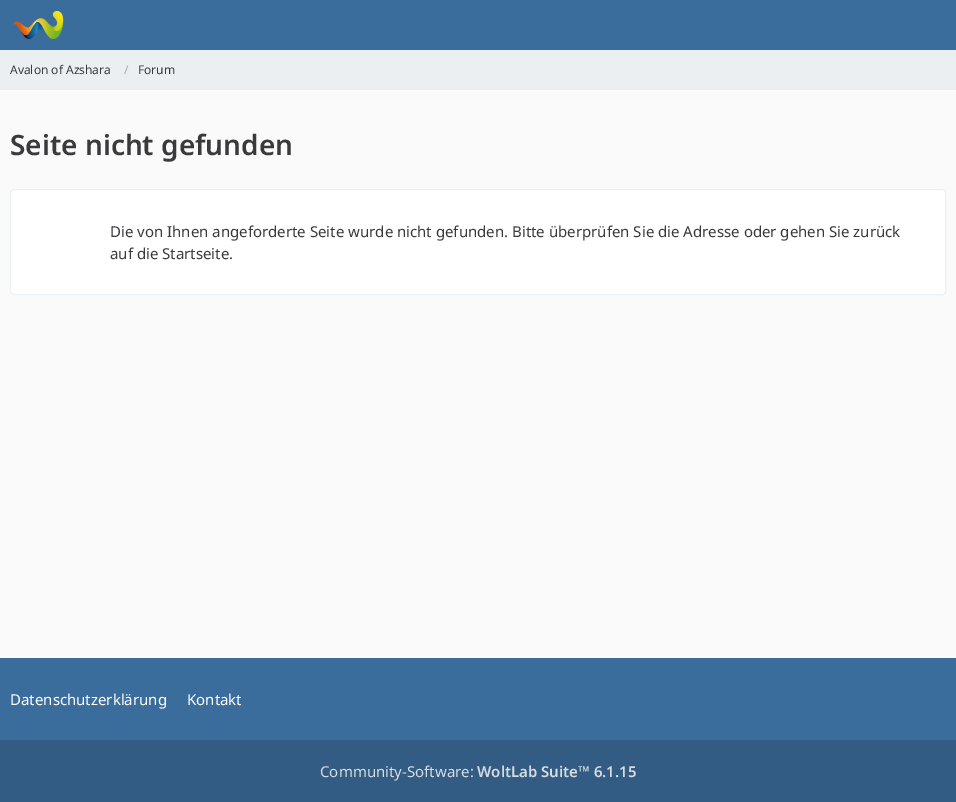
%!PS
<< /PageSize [956 802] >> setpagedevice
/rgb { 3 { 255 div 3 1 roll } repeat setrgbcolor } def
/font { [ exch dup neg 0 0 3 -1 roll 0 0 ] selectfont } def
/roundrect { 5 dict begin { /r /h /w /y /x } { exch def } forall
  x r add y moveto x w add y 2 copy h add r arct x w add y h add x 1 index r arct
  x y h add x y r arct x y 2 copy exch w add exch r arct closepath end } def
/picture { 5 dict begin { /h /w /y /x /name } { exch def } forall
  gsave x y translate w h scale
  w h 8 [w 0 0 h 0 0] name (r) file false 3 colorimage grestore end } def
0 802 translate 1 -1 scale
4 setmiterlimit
250 250 250 rgb
0 0 956 802 rectfill
58 109 156 rgb
0 0 956 50 rectfill
(img/1.rgb) 12 11 52 28 picture
236 239 241 rgb
0 50 956 40 rectfill
255 255 255 rgb
10.5 189.5 935 105 3.5 roundrect gsave fill grestore
236 241 247 rgb
stroke
58 109 156 rgb
0 658 956 82 rectfill
50 92 132 rgb
0 740 956 62 rectfill
/NotoSans-Regular 12 font
58 58 61 rgb
10 74 moveto (Avalon of Azshara) show
170 170 170 rgb
124 74 moveto (/) show
58 58 61 rgb
138 74 moveto (Forum) show
/NotoSans-SemiBold 28 font
10 155 moveto (Seite nicht gefunden) show
/NotoSans-Regular 15 font
110 237 moveto (Die von Ihnen angeforderte Seite wurde nicht gefunden. Bitte überprüfen Sie die Adresse oder gehen Sie zurück) show
110 259 moveto (auf die Startseite.) show
255 255 255 rgb
10 705 moveto (Datenschutzerklärung) show
187 705 moveto (Kontakt) show
217 220 222 rgb
320 777 moveto (Community-Software:) show
/NotoSans-SemiBold 15 font
477 777 moveto (WoltLab Suite™ 6.1.15) show
showpage
